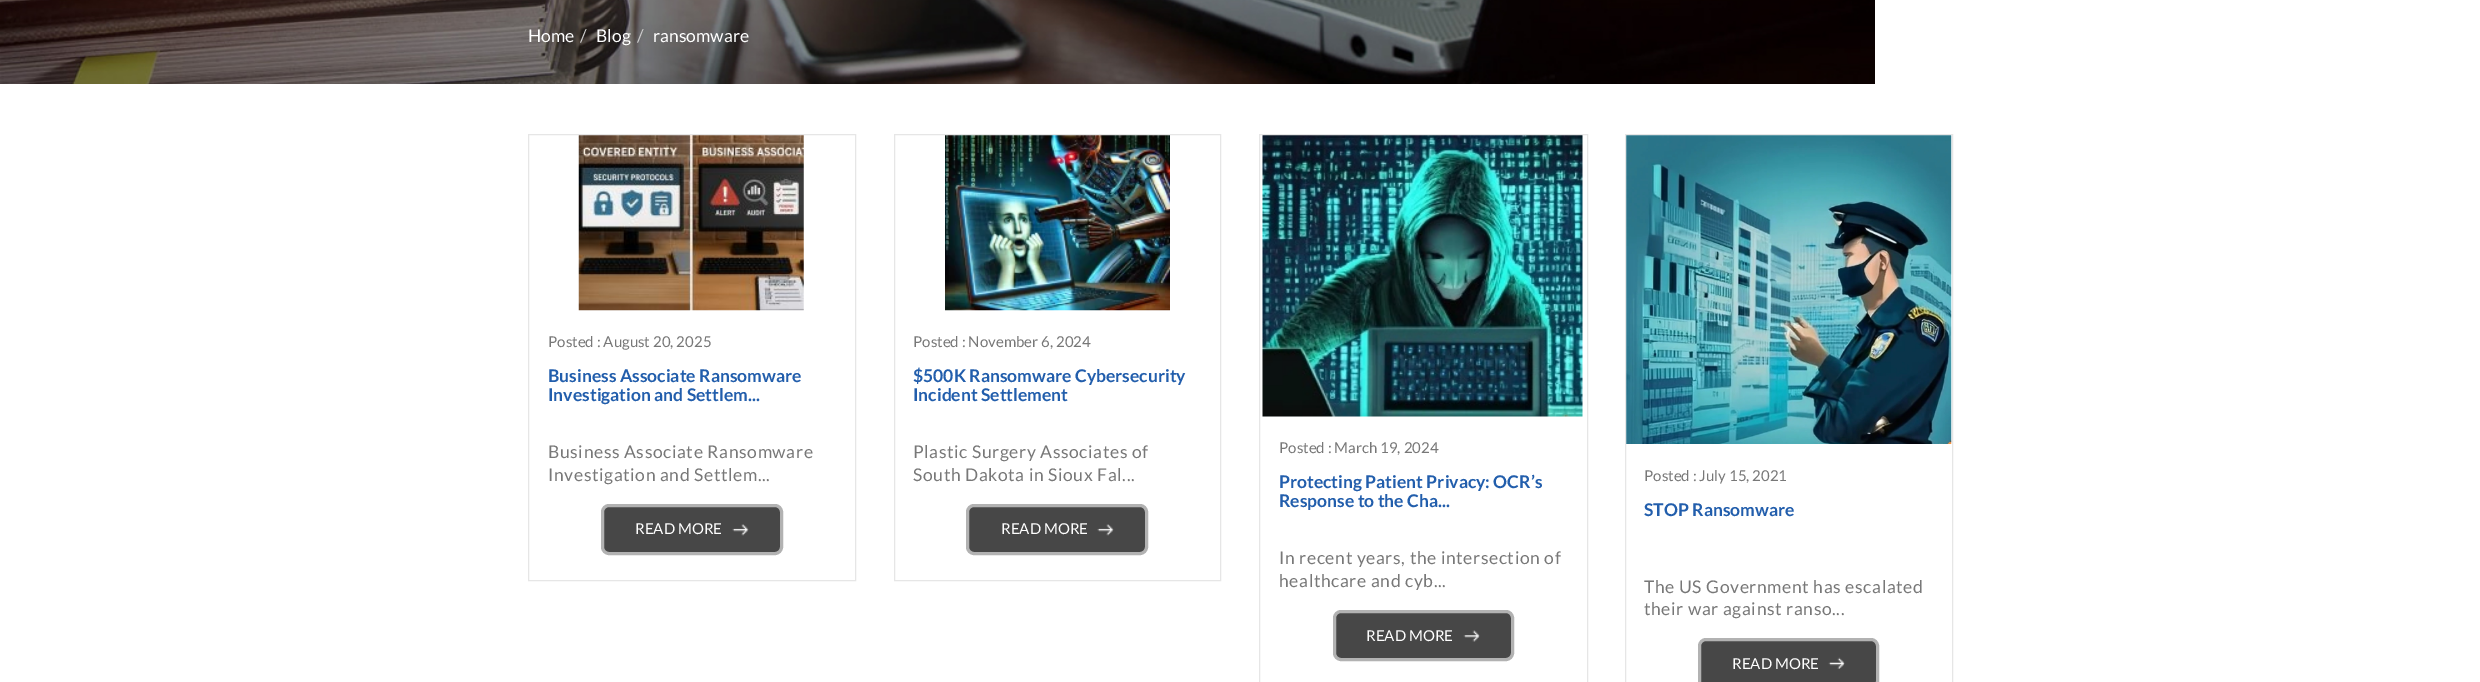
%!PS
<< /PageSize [2480 682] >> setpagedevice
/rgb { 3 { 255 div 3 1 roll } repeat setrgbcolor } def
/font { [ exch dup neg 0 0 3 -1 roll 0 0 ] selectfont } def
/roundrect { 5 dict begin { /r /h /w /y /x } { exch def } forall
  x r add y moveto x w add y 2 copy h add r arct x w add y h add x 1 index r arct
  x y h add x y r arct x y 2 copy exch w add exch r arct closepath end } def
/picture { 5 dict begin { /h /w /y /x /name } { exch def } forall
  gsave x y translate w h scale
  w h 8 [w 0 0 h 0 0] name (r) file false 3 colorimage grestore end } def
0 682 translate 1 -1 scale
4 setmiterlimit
255 255 255 rgb
0 0 2480 682 rectfill
(img/1.rgb) 0 0 1875 84 picture
230 230 230 rgb
528.5 134.5 327 446 rectstroke
(img/2.rgb) 578 135 226 176 picture
71 71 71 rgb
602.5 505.5 179 48 6.5 roundrect gsave fill grestore
178 178 178 rgb
3 setlinewidth
stroke
(img/3.rgb) 732 524 17 12 picture
230 230 230 rgb
1 setlinewidth
894.5 134.5 326 446 rectstroke
(img/4.rgb) 945 135 225 176 picture
71 71 71 rgb
967.5 505.5 179 48 6.5 roundrect gsave fill grestore
178 178 178 rgb
3 setlinewidth
stroke
(img/5.rgb) 1097 524 17 12 picture
230 230 230 rgb
1 setlinewidth
1259.5 134.5 328 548 rectstroke
(img/6.rgb) 1262 135 321 282 picture
71 71 71 rgb
1334.5 611.5 178 48 6.5 roundrect gsave fill grestore
178 178 178 rgb
3 setlinewidth
stroke
(img/7.rgb) 1463 630 17 12 picture
230 230 230 rgb
1 setlinewidth
1625.5 134.5 327 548 rectstroke
(img/8.rgb) 1626 135 326 309 picture
71 71 71 rgb
1699.5 639.5 178 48 6.5 roundrect gsave fill grestore
178 178 178 rgb
3 setlinewidth
stroke
(img/9.rgb) 1828 657 17 12 picture
/Lato-Regular 17.5 font
255 255 255 rgb
528 42 moveto (Home) show
204 204 204 rgb
580 42 moveto (/) show
255 255 255 rgb
596 42 moveto (Blog) show
204 204 204 rgb
637 42 moveto (/) show
255 255 255 rgb
653 42 moveto (ransomware) show
/Lato-Regular 15 font
120 120 120 rgb
548 347 moveto (Posted : August 20, 2025) show
/Lato-Bold 17.5 font
34 94 172 rgb
548 382 moveto (Business Associate Ransomware) show
548 401 moveto (Investigation and Settlem...) show
/Lato-Regular 17.5 font
120 120 120 rgb
548 458 moveto 0.6 0 (Business Associate Ransomware) ashow
548 481 moveto 0.6 0 (Investigation and Settlem...) ashow
/Lato-Regular 15 font
255 255 255 rgb
635 534 moveto (READ MORE) show
120 120 120 rgb
913 347 moveto (Posted : November 6, 2024) show
/Lato-Bold 17.5 font
34 94 172 rgb
913 382 moveto ($500K Ransomware Cybersecurity) show
913 401 moveto (Incident Settlement) show
/Lato-Regular 17.5 font
120 120 120 rgb
913 458 moveto 0.6 0 (Plastic Surgery Associates of) ashow
913 481 moveto 0.6 0 (South Dakota in Sioux Fal...) ashow
/Lato-Regular 15 font
255 255 255 rgb
1001 534 moveto (READ MORE) show
120 120 120 rgb
1279 453 moveto (Posted : March 19, 2024) show
/Lato-Bold 17.5 font
34 94 172 rgb
1279 488 moveto (Protecting Patient Privacy: OCR’s) show
1279 507 moveto (Response to the Cha...) show
/Lato-Regular 17.5 font
120 120 120 rgb
1279 564 moveto 0.6 0 (In recent years, the intersection of) ashow
1279 587 moveto 0.6 0 (healthcare and cyb...) ashow
/Lato-Regular 15 font
255 255 255 rgb
1366 641 moveto (READ MORE) show
120 120 120 rgb
1644 481 moveto (Posted : July 15, 2021) show
/Lato-Bold 17.5 font
34 94 172 rgb
1644 516 moveto (STOP Ransomware) show
/Lato-Regular 17.5 font
120 120 120 rgb
1644 593 moveto 0.6 0 (The US Government has escalated) ashow
1644 615 moveto 0.6 0 (their war against ranso...) ashow
/Lato-Regular 15 font
255 255 255 rgb
1732 669 moveto (READ MORE) show
showpage
